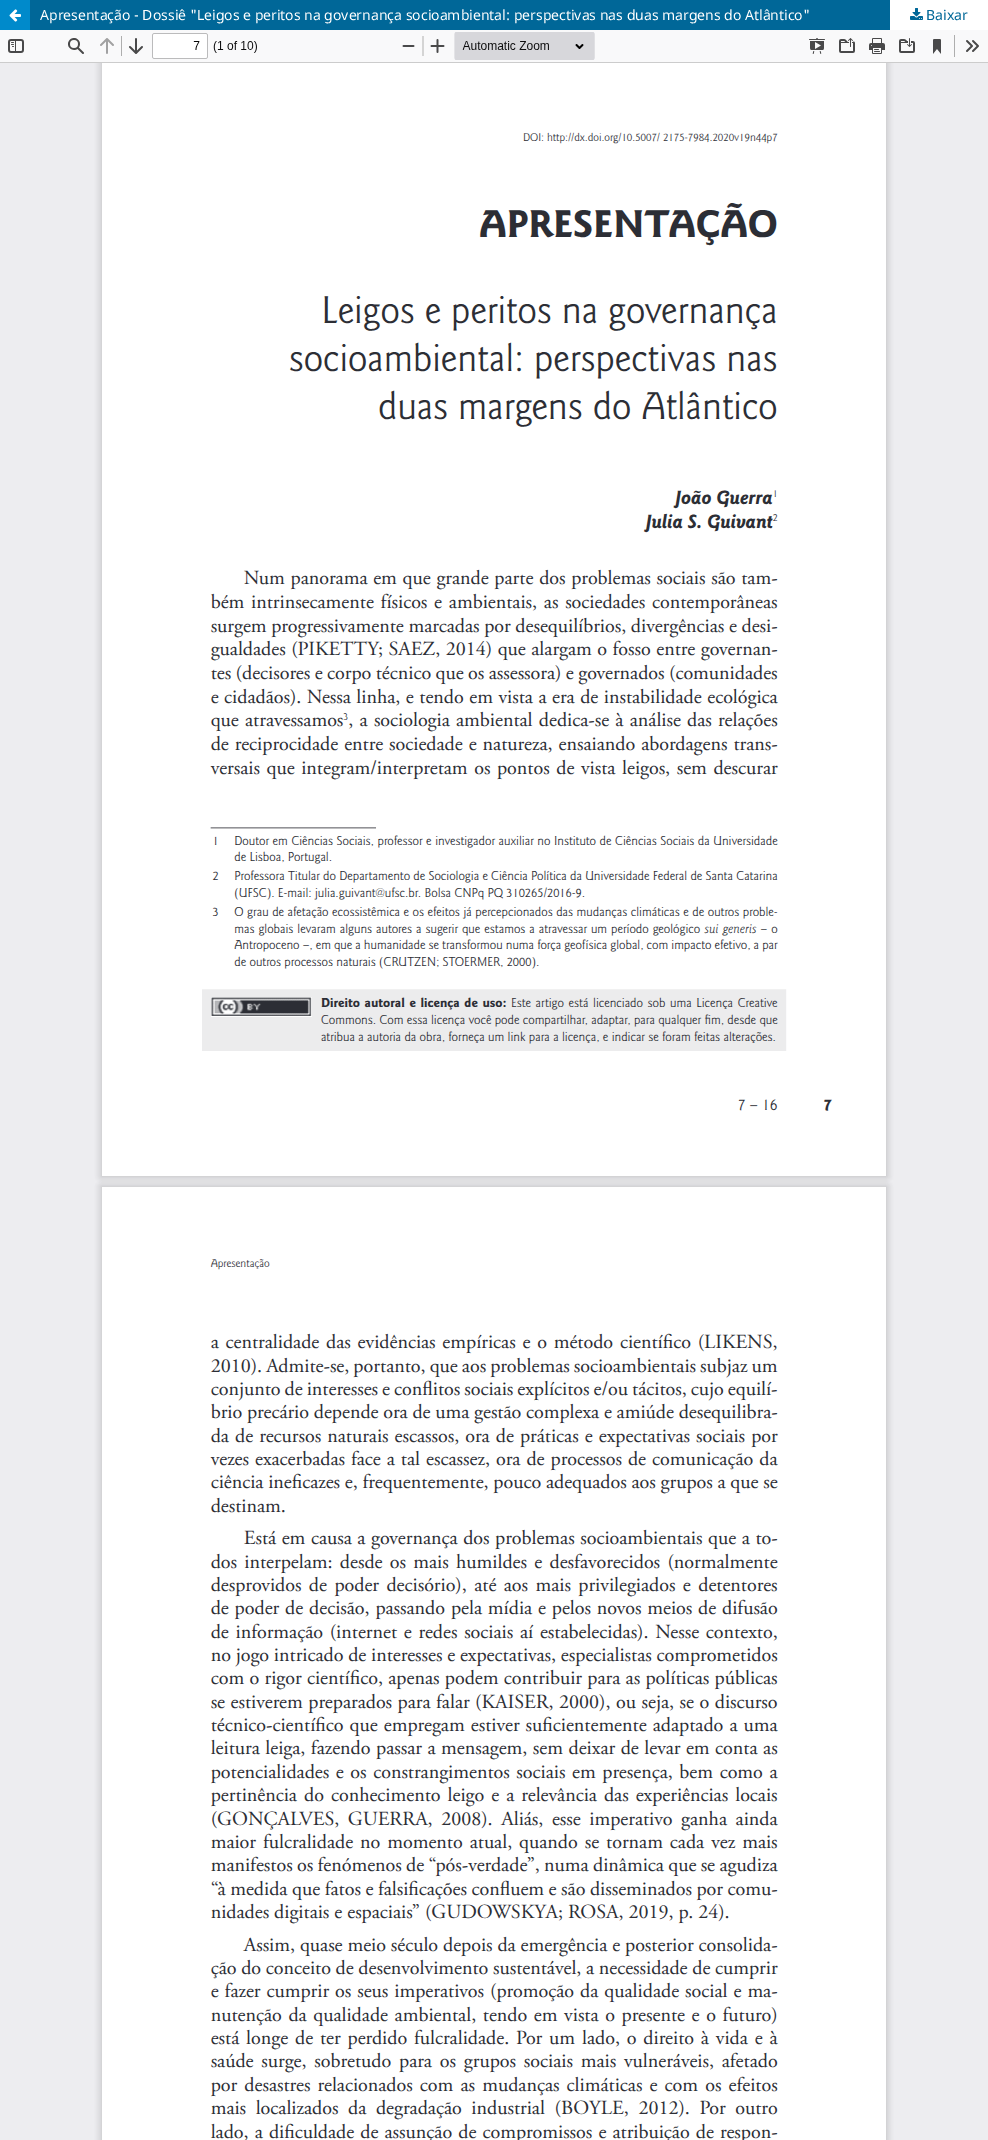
%!PS
<< /PageSize [988 2140] >> setpagedevice
/rgb { 3 { 255 div 3 1 roll } repeat setrgbcolor } def
/font { [ exch dup neg 0 0 3 -1 roll 0 0 ] selectfont } def
/picture { 5 dict begin { /h /w /y /x /name } { exch def } forall
  gsave x y translate w h scale
  w h 8 [w 0 0 h 0 0] name (r) file false 3 colorimage grestore end } def
0 2140 translate 1 -1 scale
4 setmiterlimit
255 255 255 rgb
0 0 988 2140 rectfill
0 103 152 rgb
30 0 860 30 rectfill
0 138 203 rgb
0 0 30 30 rectfill
(img/1.rgb) 9 9 12 13 picture
(img/2.rgb) 910 8 13 12 picture
(img/3.rgb) 0 30 988 2110 picture
/NotoSans-Regular 14 font
255 255 255 rgb
40 20 moveto (Apresentação - Dossiê "Leigos e peritos na governança socioambiental: perspectivas nas duas margens do Atlântico") show
0 103 152 rgb
926 20 moveto (Baixar) show
showpage
